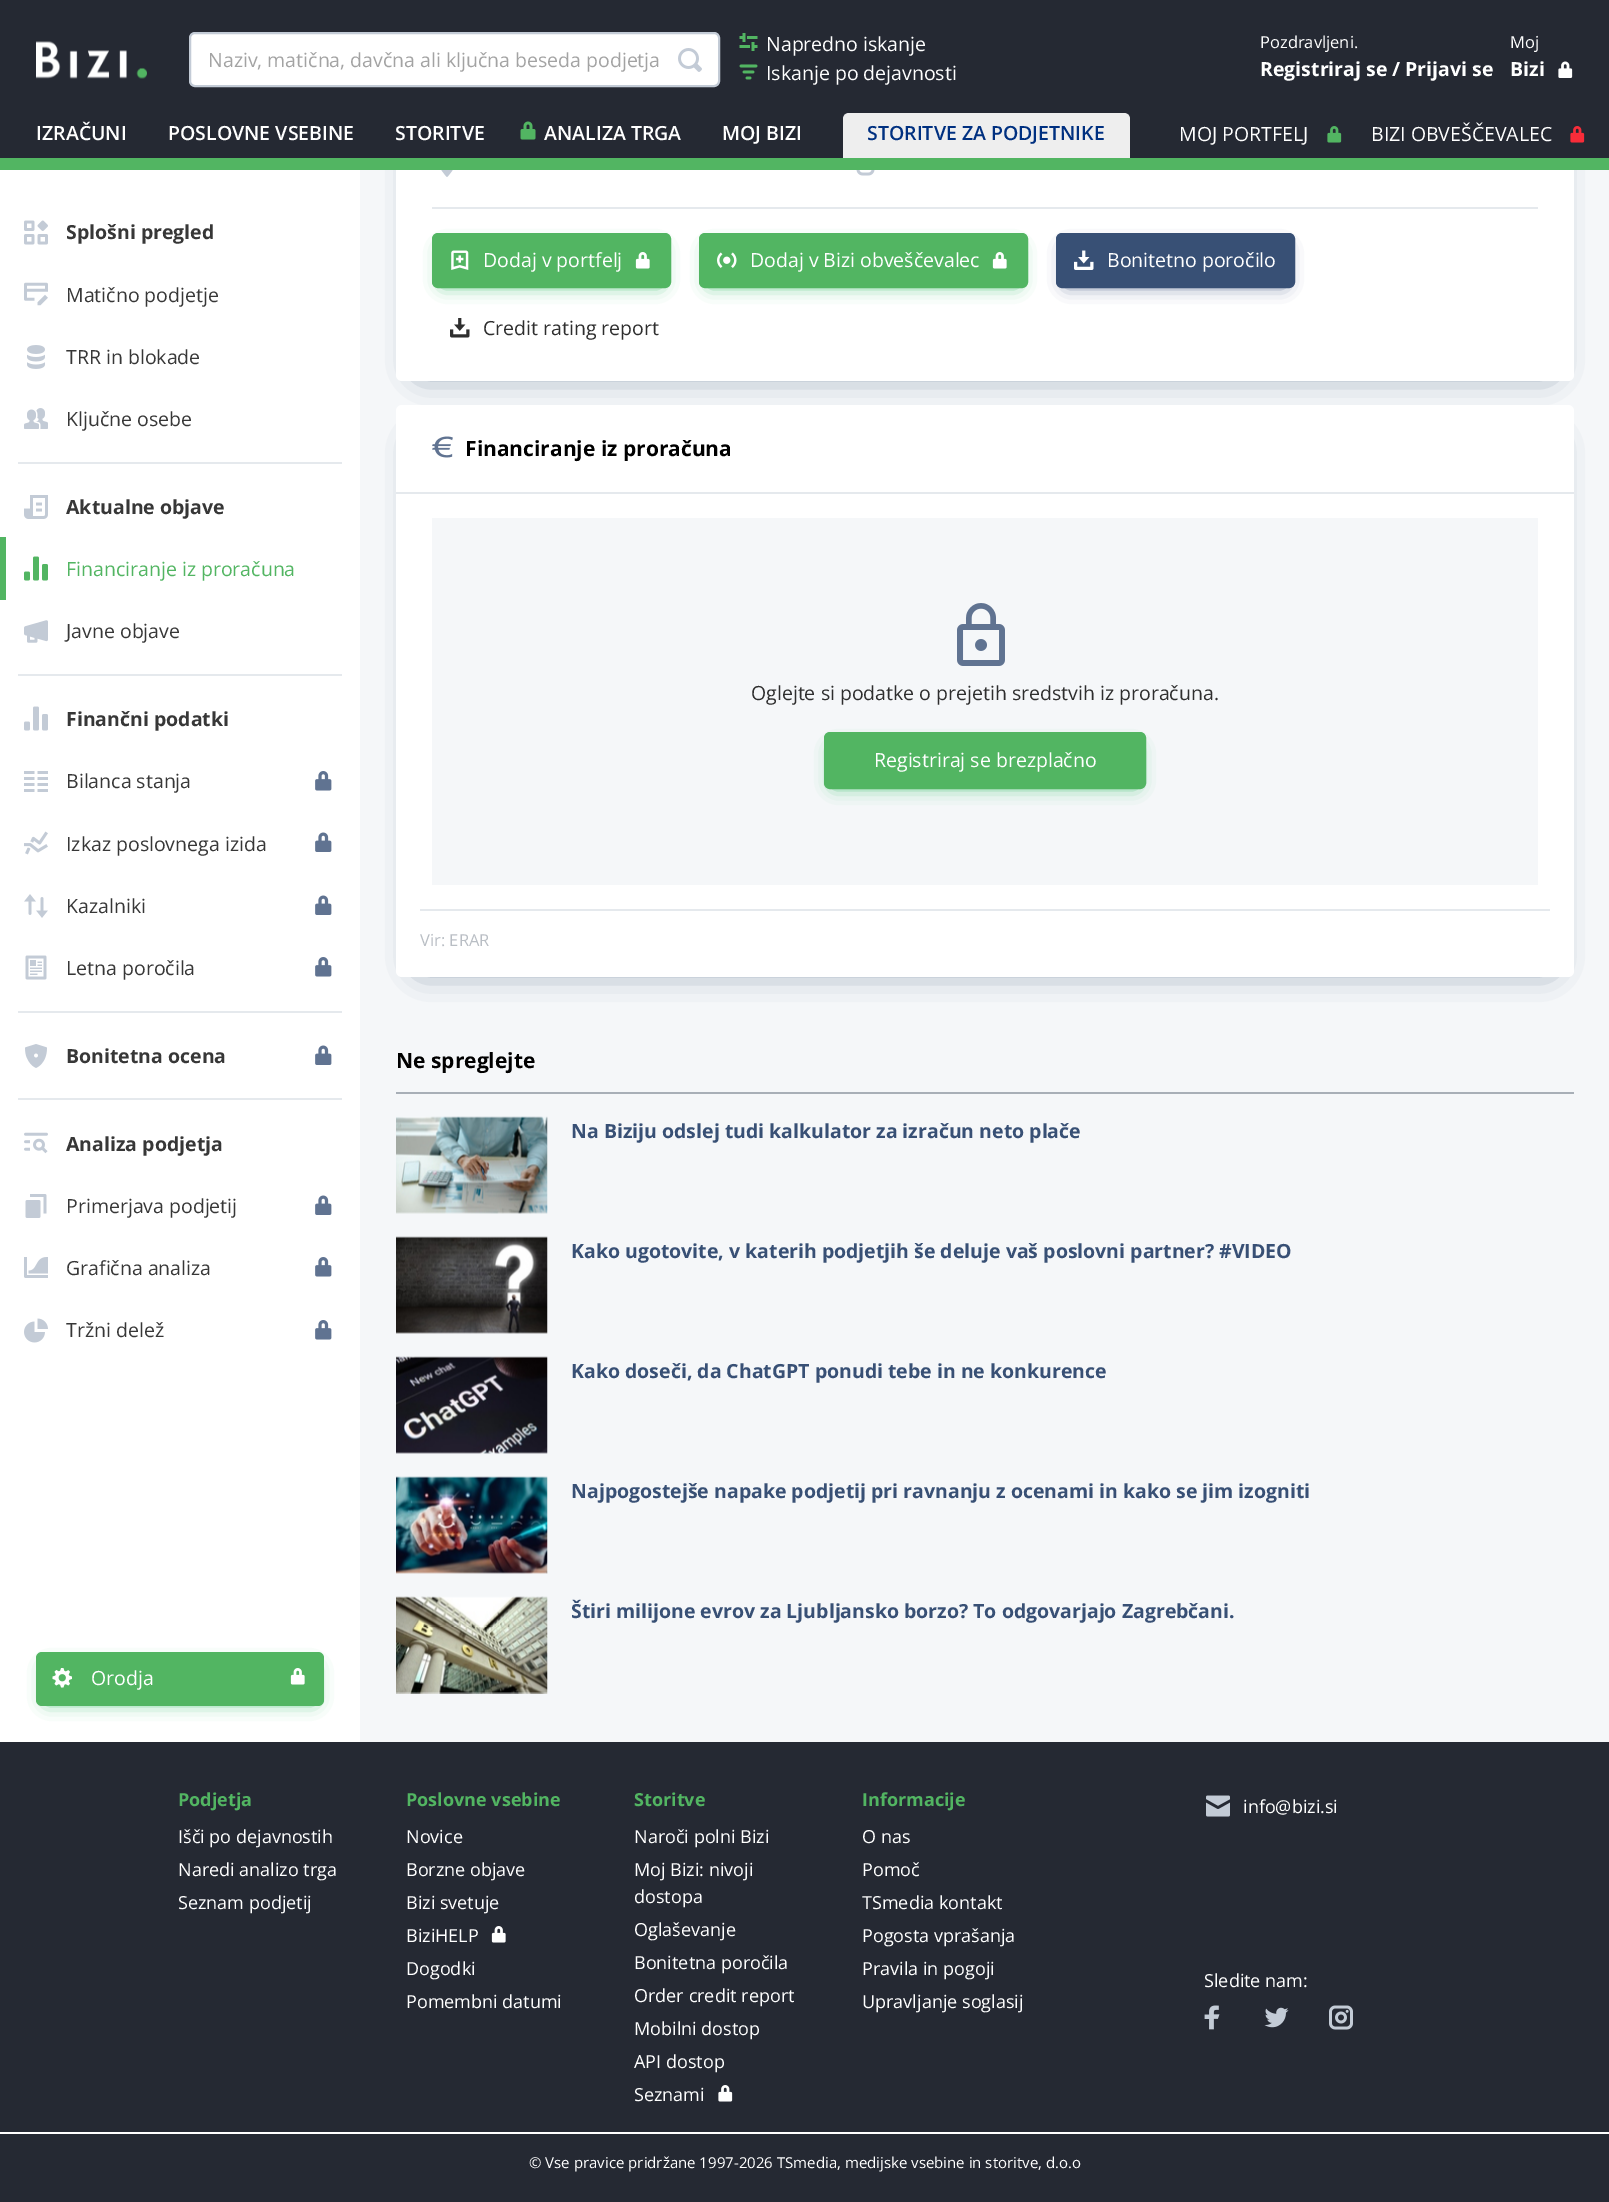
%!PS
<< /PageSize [1609 2202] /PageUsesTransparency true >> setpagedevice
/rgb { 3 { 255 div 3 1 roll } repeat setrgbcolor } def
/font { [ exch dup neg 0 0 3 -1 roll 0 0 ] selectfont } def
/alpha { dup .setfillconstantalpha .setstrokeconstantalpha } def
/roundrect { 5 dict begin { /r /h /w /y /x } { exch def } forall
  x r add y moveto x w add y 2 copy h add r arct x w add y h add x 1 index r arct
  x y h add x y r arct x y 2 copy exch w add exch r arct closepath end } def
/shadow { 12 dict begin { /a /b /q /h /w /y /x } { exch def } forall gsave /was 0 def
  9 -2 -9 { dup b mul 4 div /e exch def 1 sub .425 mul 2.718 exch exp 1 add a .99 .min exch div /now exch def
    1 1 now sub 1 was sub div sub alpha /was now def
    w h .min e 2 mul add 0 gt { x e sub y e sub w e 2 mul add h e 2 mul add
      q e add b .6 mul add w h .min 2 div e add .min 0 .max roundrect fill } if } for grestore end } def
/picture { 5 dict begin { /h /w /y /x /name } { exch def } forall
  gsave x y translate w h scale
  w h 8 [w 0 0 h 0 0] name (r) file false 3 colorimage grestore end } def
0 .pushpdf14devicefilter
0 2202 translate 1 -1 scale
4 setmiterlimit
245 247 249 rgb
0 0 1609 2202 rectfill
56 80 117 rgb
422 -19 1126 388 0 16.5 1 shadow
255 255 255 rgb
396 -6 1178 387 6 roundrect fill
37 41 51 rgb
0 0 1609 158 rectfill
(img/1.rgb) 36 41 111 38 picture
255 255 255 rgb
190 33 529 53 5 roundrect gsave fill grestore
195 203 214 rgb
2 setlinewidth
stroke
(img/2.rgb) 678 48 24 24 picture
(img/3.rgb) 739 33 19 18 picture
(img/4.rgb) 739 64 19 16 picture
(img/5.rgb) 520 121 16 19 picture
238 238 238 rgb
849 113 moveto 1124 113 lineto 1127.5 113 1130 115.5 1130 119 curveto 1130 158 lineto 843 158 lineto 843 119 lineto 843 115.5 845.5 113 849 113 curveto closepath fill
(img/6.rgb) 1558 61 15 17 picture
(img/7.rgb) 1327 126 15 17 picture
(img/8.rgb) 1570 126 15 17 picture
82 181 98 rgb
0 158 1609 12 rectfill
255 255 255 rgb
0 170 360 1572 rectfill
(img/9.rgb) 24 220 24 25 picture
(img/10.rgb) 24 282 24 24 picture
(img/11.rgb) 27 345 18 24 picture
(img/12.rgb) 24 408 24 21 picture
229 233 237 rgb
18 462 324 2 rectfill
(img/13.rgb) 24 495 24 24 picture
82 181 98 rgb
0 537 6 63 rectfill
(img/14.rgb) 24 556 24 25 picture
(img/15.rgb) 24 620 24 23 picture
229 233 237 rgb
18 674 324 2 rectfill
(img/16.rgb) 24 706 24 25 picture
(img/17.rgb) 24 771 24 21 picture
(img/18.rgb) 315 771 17 20 picture
(img/19.rgb) 24 831 24 24 picture
(img/20.rgb) 315 832 17 20 picture
(img/21.rgb) 24 894 24 24 picture
(img/20.rgb) 315 895 17 20 picture
(img/22.rgb) 25 955 22 25 picture
(img/18.rgb) 315 957 17 20 picture
18 1011 324 2 rectfill
(img/23.rgb) 25 1044 22 24 picture
(img/20.rgb) 315 1045 17 20 picture
18 1098 324 2 rectfill
(img/24.rgb) 24 1132 24 22 picture
(img/25.rgb) 25 1194 22 24 picture
(img/20.rgb) 315 1195 17 20 picture
(img/26.rgb) 24 1257 24 21 picture
(img/18.rgb) 315 1257 17 20 picture
(img/27.rgb) 24 1318 24 25 picture
(img/18.rgb) 315 1320 17 20 picture
36 185 88 rgb
47 1668 267 33 0 9 1 shadow
82 181 98 rgb
36 1652 288 54 6 roundrect fill
(img/28.rgb) 52 1668 20 20 picture
(img/29.rgb) 290 1668 15 17 picture
(img/30.rgb) 441 170 12 7 picture
(img/31.rgb) 856 170 19 6 picture
229 233 237 rgb
432 207 1106 2 rectfill
36 185 88 rgb
443 249 217 35 0 9 1 shadow
82 181 98 rgb
433 234 237 53 5 roundrect gsave fill grestore
stroke
(img/32.rgb) 451 250 18 20 picture
(img/29.rgb) 635 252 15 17 picture
36 185 88 rgb
710 249 307 35 0 9 1 shadow
82 181 98 rgb
700 234 327 53 5 roundrect gsave fill grestore
stroke
(img/33.rgb) 717 252 20 16 picture
(img/29.rgb) 992 252 15 17 picture
54 79 120 rgb
1067 249 217 35 0 9 1 shadow
56 80 117 rgb
1057 234 237 53 5 roundrect gsave fill grestore
stroke
(img/34.rgb) 1074 250 20 20 picture
(img/35.rgb) 450 318 20 20 picture
422 444 1126 521 0 16.5 1 shadow
255 255 255 rgb
396 405 1178 572 6 roundrect fill
229 233 237 rgb
396 492 1178 2 rectfill
(img/36.rgb) 432 436 21 22 picture
245 247 249 rgb
432 518 1106 367 rectfill
(img/37.rgb) 957 603 48 63 picture
36 185 88 rgb
834 749 302 36 0 9 1 shadow
82 181 98 rgb
825 733 320 55 5 roundrect gsave fill grestore
stroke
229 233 237 rgb
420 909 1130 2 rectfill
168 175 183 rgb
396 1092 1178 2 rectfill
(img/38.rgb) 396 1116 152 98 picture
(img/39.rgb) 396 1236 152 98 picture
(img/40.rgb) 396 1356 152 98 picture
(img/41.rgb) 396 1476 152 98 picture
(img/42.rgb) 396 1596 152 98 picture
37 41 51 rgb
0 1742 1609 460 rectfill
(img/43.rgb) 491 1926 15 17 picture
(img/44.rgb) 718 2085 15 17 picture
(img/45.rgb) 1206 1795 24 22 picture
(img/46.rgb) 1204 2005 16 25 picture
(img/47.rgb) 1264 2007 25 21 picture
(img/48.rgb) 1329 2005 24 25 picture
255 255 255 rgb
0 2132 1609 2 rectfill
/OpenSans-Regular 19.5 font
163 163 163 rgb
208 67 moveto (Naziv, matična, davčna ali ključna beseda podjetja) show
255 255 255 rgb
766 51 moveto (Napredno iskanje) show
766 80 moveto (Iskanje po dejavnosti) show
/OpenSans-SemiBold 19.5 font
[
  [(IZRAČUNI) 36 140]
  [(POSLOVNE VSEBINE) 168 140]
  [(STORITVE) 395 140]
  [(ANALIZA TRGA) 544 140]
  [(MOJ BIZI) 722 140]
] { aload pop moveto show } forall
0 48 128 rgb
867 140 moveto (STORITVE ZA PODJETNIKE) show
/OpenSans-Regular 16.5 font
255 255 255 rgb
1260 48 moveto (Pozdravljeni.) show
/OpenSans-Bold 19.5 font
1260 76 moveto (Registriraj se) show
1392 76 moveto (/ Prijavi se) show
/OpenSans-Regular 16.5 font
1510 48 moveto (Moj) show
/OpenSans-Bold 19.5 font
1510 76 moveto (Bizi) show
/OpenSans-Regular 19.5 font
1179 141 moveto (MOJ PORTFELJ) show
1371 141 moveto (BIZI OBVEŠČEVALEC) show
/OpenSans-Bold 19.5 font
55 55 55 rgb
66 239 moveto (Splošni pregled) show
/OpenSans-Regular 19.5 font
[
  [(Matično podjetje) 66 302]
  [(TRR in blokade) 66 364]
  [(Ključne osebe) 66 426]
] { aload pop moveto show } forall
/OpenSans-Bold 19.5 font
66 514 moveto (Aktualne objave) show
/OpenSans-Regular 19.5 font
82 181 98 rgb
66 576 moveto (Financiranje iz proračuna) show
55 55 55 rgb
66 638 moveto (Javne objave) show
/OpenSans-Bold 19.5 font
66 726 moveto (Finančni podatki) show
/OpenSans-Regular 19.5 font
[
  [(Bilanca stanja) 66 788]
  [(Izkaz poslovnega izida) 66 851]
  [(Kazalniki) 66 913]
  [(Letna poročila) 66 975]
] { aload pop moveto show } forall
/OpenSans-Bold 19.5 font
66 1063 moveto (Bonitetna ocena) show
66 1151 moveto (Analiza podjetja) show
/OpenSans-Regular 19.5 font
[
  [(Primerjava podjetij) 66 1213]
  [(Grafična analiza) 66 1275]
  [(Tržni delež) 66 1337]
] { aload pop moveto show } forall
255 255 255 rgb
[
  [(Orodja) 91 1685]
  [(Dodaj v portfelj) 483 267]
  [(Dodaj v Bizi obveščevalec) 750 267]
  [(Bonitetno poročilo) 1107 267]
] { aload pop moveto show } forall
46 46 46 rgb
483 335 moveto (Credit rating report) show
/OpenSans-Bold 21 font
0 0 0 rgb
465 456 moveto (Financiranje iz proračuna) show
/OpenSans-Regular 19.5 font
46 46 46 rgb
751 700 moveto (Oglejte si podatke o prejetih sredstvih iz proračuna.) show
255 255 255 rgb
874 767 moveto (Registriraj se brezplačno) show
/OpenSans-Regular 16.5 font
185 190 196 rgb
420 946 moveto (Vir: ERAR) show
/OpenSans-Bold 21 font
0 0 0 rgb
396 1068 moveto (Ne spreglejte) show
/OpenSans-Bold 19.5 font
56 80 117 rgb
[
  [(Na Biziju odslej tudi kalkulator za izračun neto plače) 571 1138]
  [(Kako ugotovite, v katerih podjetjih še deluje vaš poslovni partner? #VIDEO) 571 1258]
  [(Kako doseči, da ChatGPT ponudi tebe in ne konkurence) 571 1378]
  [(Najpogostejše napake podjetij pri ravnanju z ocenami in kako se jim izogniti) 571 1498]
  [(Štiri milijone evrov za Ljubljansko borzo? To odgovarjajo Zagrebčani.) 571 1618]
] { aload pop moveto show } forall
/OpenSans-Bold 18 font
82 181 98 rgb
178 1806 moveto (Podjetja) show
/OpenSans-Regular 18 font
255 255 255 rgb
[
  [(Išči po dejavnostih) 178 1843]
  [(Naredi analizo trga) 178 1876]
  [(Seznam podjetij) 178 1909]
] { aload pop moveto show } forall
/OpenSans-Bold 18 font
82 181 98 rgb
406 1806 moveto (Poslovne vsebine) show
/OpenSans-Regular 18 font
255 255 255 rgb
[
  [(Novice) 406 1843]
  [(Borzne objave) 406 1876]
  [(Bizi svetuje) 406 1909]
  [(BiziHELP) 406 1942]
  [(Dogodki) 406 1975]
  [(Pomembni datumi) 406 2008]
] { aload pop moveto show } forall
/OpenSans-Bold 18 font
82 181 98 rgb
634 1806 moveto (Storitve) show
/OpenSans-Regular 18 font
255 255 255 rgb
[
  [(Naroči polni Bizi) 634 1843]
  [(Moj Bizi: nivoji) 634 1876]
  [(dostopa) 634 1903]
  [(Oglaševanje) 634 1936]
  [(Bonitetna poročila) 634 1969]
  [(Order credit report) 634 2002]
  [(Mobilni dostop) 634 2035]
  [(API dostop) 634 2068]
  [(Seznami) 634 2101]
] { aload pop moveto show } forall
/OpenSans-Bold 18 font
82 181 98 rgb
862 1806 moveto (Informacije) show
/OpenSans-Regular 18 font
255 255 255 rgb
[
  [(O nas) 862 1843]
  [(Pomoč) 862 1876]
  [(TSmedia kontakt) 862 1909]
  [(Pogosta vprašanja) 862 1942]
  [(Pravila in pogoji) 862 1975]
  [(Upravljanje soglasij) 862 2008]
  [(info@bizi.si) 1243 1813]
  [(Sledite nam:) 1204 1987]
] { aload pop moveto show } forall
/OpenSans-Regular 15 font
529 2168 moveto (© Vse pravice pridržane 1997-2026 TSmedia, medijske vsebine in storitve, d.o.o) show
.poppdf14devicefilter showpage
